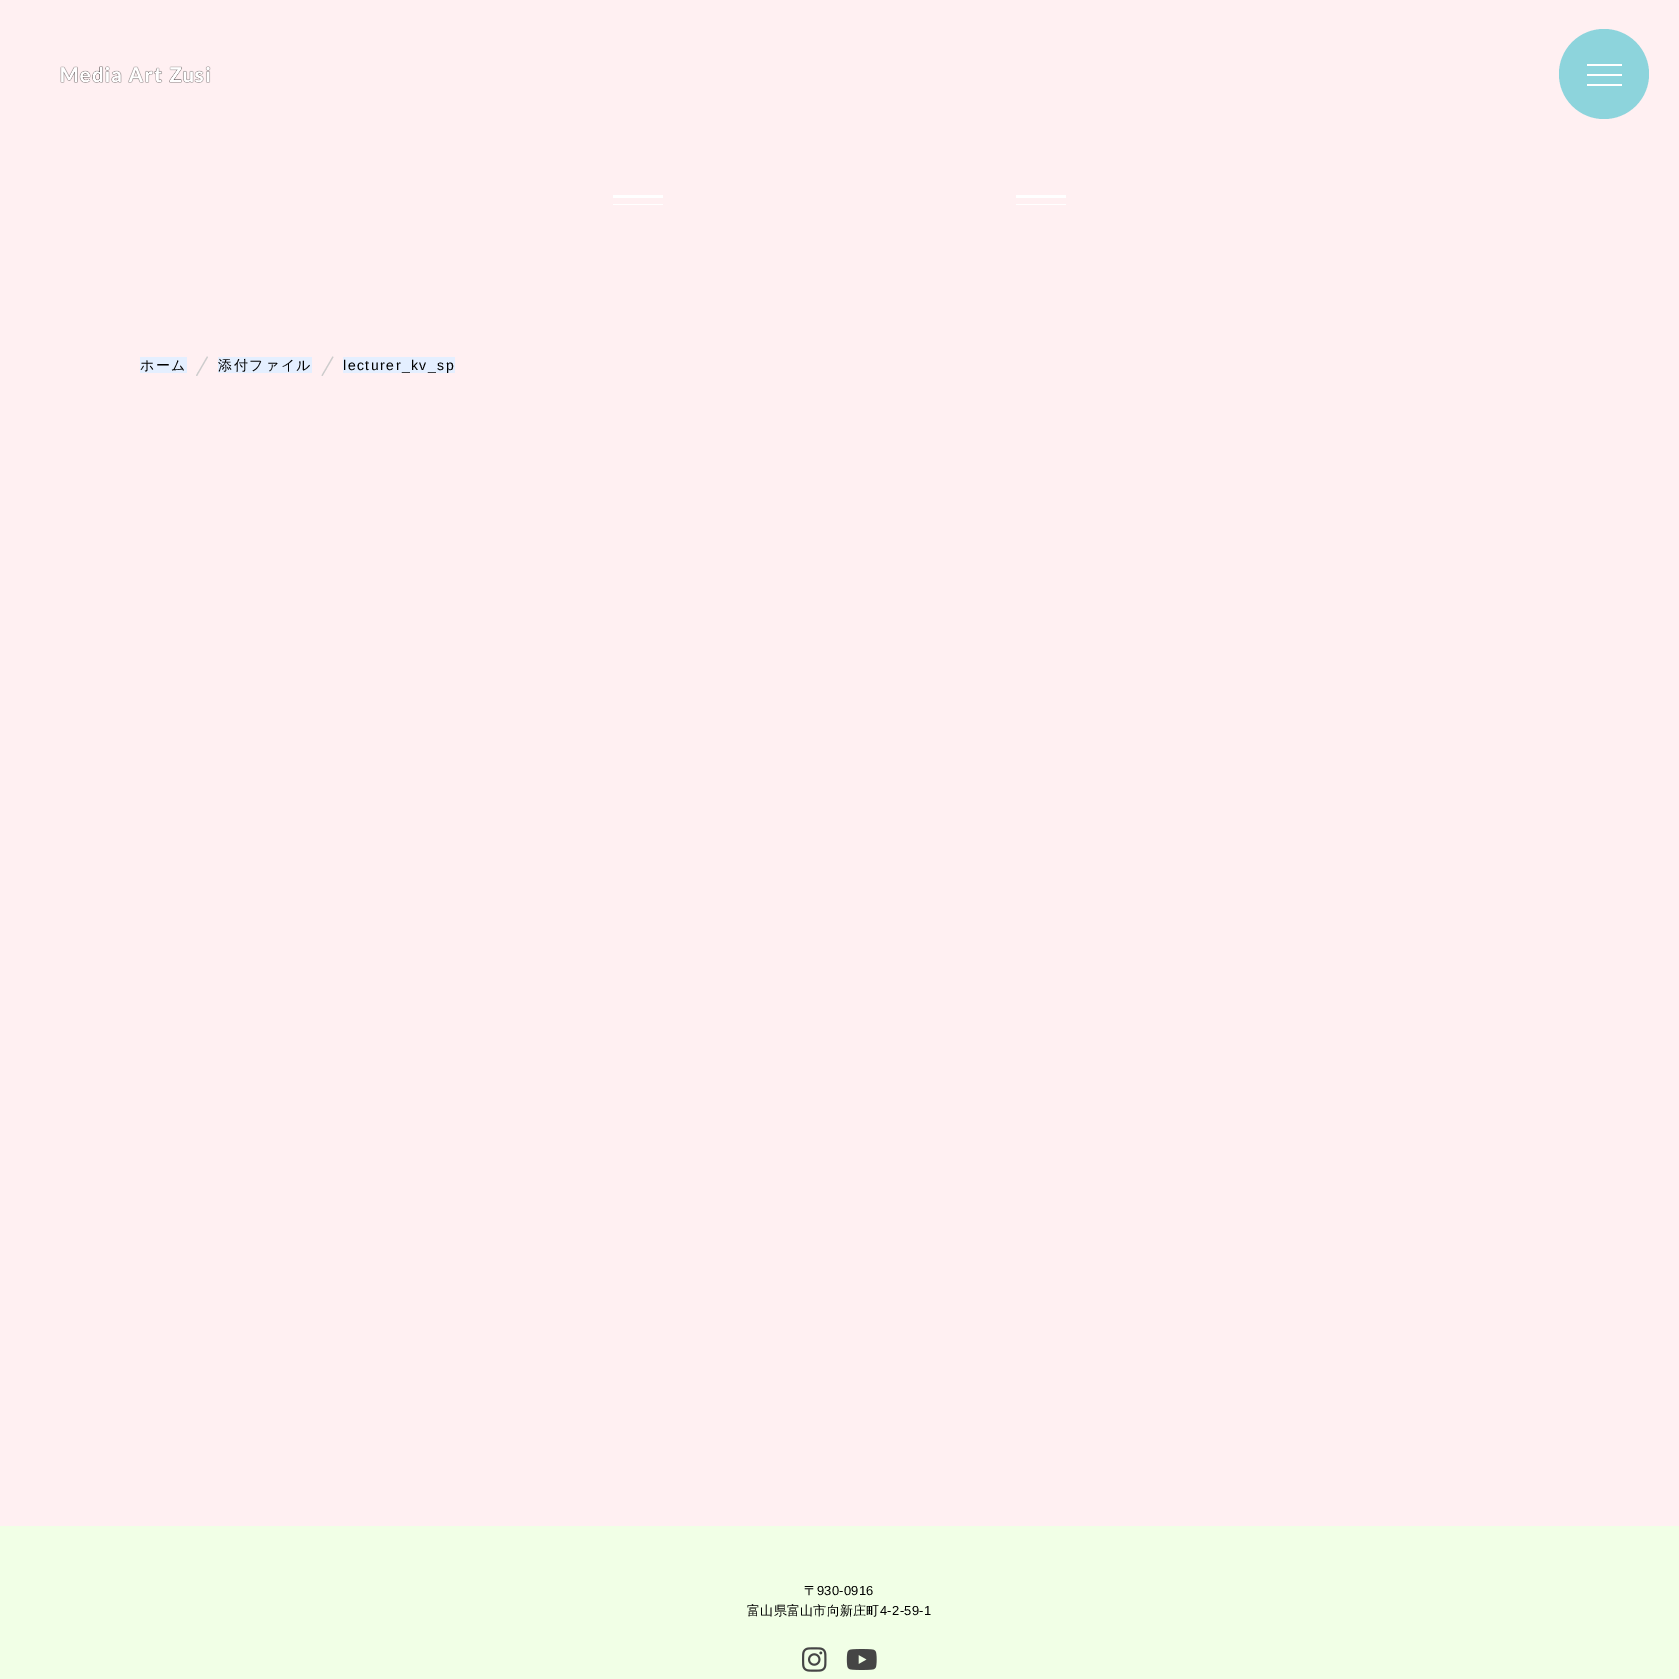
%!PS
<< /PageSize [1679 1679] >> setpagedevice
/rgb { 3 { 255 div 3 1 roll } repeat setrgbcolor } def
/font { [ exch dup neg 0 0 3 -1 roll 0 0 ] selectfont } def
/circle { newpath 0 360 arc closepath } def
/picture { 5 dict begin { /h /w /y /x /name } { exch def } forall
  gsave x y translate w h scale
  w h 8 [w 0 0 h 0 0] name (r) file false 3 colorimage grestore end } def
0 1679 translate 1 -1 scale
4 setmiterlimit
255 240 242 rgb
0 0 1679 1679 rectfill
(img/1.rgb) 60 66 151 17 picture
141 212 220 rgb
1604 74 45 circle fill
[
  [1587 64 35 2 255 255 255]
  [1587 74 35 2 255 255 255]
  [1587 84 35 2 255 255 255]
  [613 195 50 3 255 255 255]
  [613 204 50 1 255 255 255]
  [1016 195 50 3 255 255 255]
  [1016 204 50 1 255 255 255]
  [140 357 47 16 228 239 255]
] { aload pop rgb rectfill } forall
204 204 204 rgb
207 356.5 moveto 208 357 lineto 197 376 lineto 196 375.5 lineto closepath fill
228 239 255 rgb
218 357 94 16 rectfill
204 204 204 rgb
332.5 356.5 moveto 333.5 357 lineto 322.5 376 lineto 321.5 375.5 lineto closepath fill
228 239 255 rgb
343 357 112 16 rectfill
241 255 230 rgb
0 1526 1679 153 rectfill
(img/2.rgb) 802 1647 25 25 picture
(img/3.rgb) 846 1649 31 21 picture
/WenQuanYiZenHei-Medium 14 font
0 0 0 rgb
140 370 moveto 1.5 0 (ホーム) ashow
218 370 moveto 1.5 0 (添付ファイル) ashow
/LiberationSans-Regular 14 font
343 370 moveto 1.5 0 (lecturer_kv_sp) ashow
/WenQuanYiZenHei-Medium 13 font
804 1595 moveto 0.25 0 (〒) ashow
/LiberationSans-Regular 13 font
817 1595 moveto 0.25 0 (930-0916) ashow
/WenQuanYiZenHei-Medium 13 font
747 1615 moveto 0.25 0 (富山県富山市向新庄町) ashow
/LiberationSans-Regular 13 font
880 1615 moveto 0.25 0 (4-2-59-1) ashow
showpage
